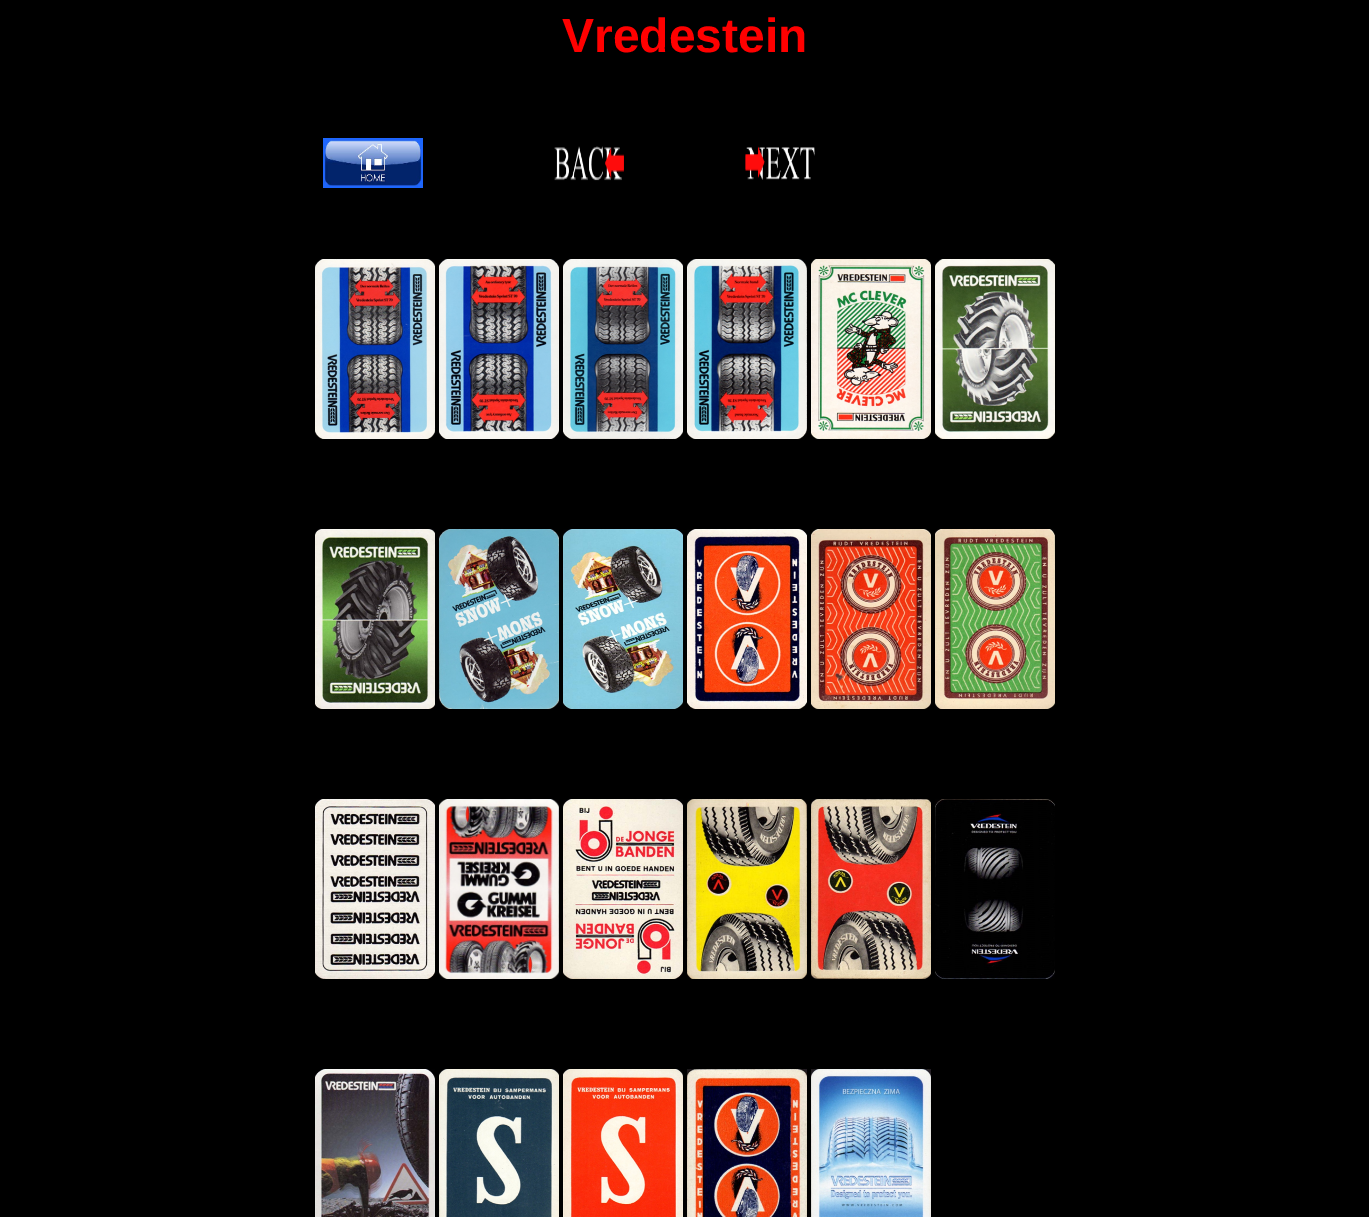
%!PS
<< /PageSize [1369 1217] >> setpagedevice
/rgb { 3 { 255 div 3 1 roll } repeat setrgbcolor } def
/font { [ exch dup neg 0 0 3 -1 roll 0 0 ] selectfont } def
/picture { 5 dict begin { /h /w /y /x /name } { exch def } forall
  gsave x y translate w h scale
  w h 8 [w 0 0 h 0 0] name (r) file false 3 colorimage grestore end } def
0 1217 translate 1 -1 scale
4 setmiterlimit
0 0 0 rgb
0 0 1369 1217 rectfill
(img/1.rgb) 323 138 100 50 picture
(img/2.rgb) 554 146 70 35 picture
(img/3.rgb) 745 146 70 34 picture
(img/4.rgb) 315 259 120 180 picture
(img/5.rgb) 439 259 120 180 picture
(img/6.rgb) 563 259 120 180 picture
(img/7.rgb) 687 259 120 180 picture
(img/8.rgb) 811 259 120 180 picture
(img/9.rgb) 935 259 120 180 picture
(img/10.rgb) 315 529 120 180 picture
(img/11.rgb) 439 529 120 180 picture
(img/12.rgb) 563 529 120 180 picture
(img/13.rgb) 687 529 120 180 picture
(img/14.rgb) 811 529 120 180 picture
(img/15.rgb) 935 529 120 180 picture
(img/16.rgb) 315 799 120 180 picture
(img/17.rgb) 439 799 120 180 picture
(img/18.rgb) 563 799 120 180 picture
(img/19.rgb) 687 799 120 180 picture
(img/20.rgb) 811 799 120 180 picture
(img/21.rgb) 935 799 120 180 picture
(img/22.rgb) 315 1069 120 148 picture
(img/23.rgb) 439 1069 120 148 picture
(img/24.rgb) 563 1069 120 148 picture
(img/25.rgb) 687 1069 120 148 picture
(img/26.rgb) 811 1069 120 148 picture
/LiberationSans-Bold 48 font
255 0 0 rgb
562 52 moveto (Vredestein) show
showpage
